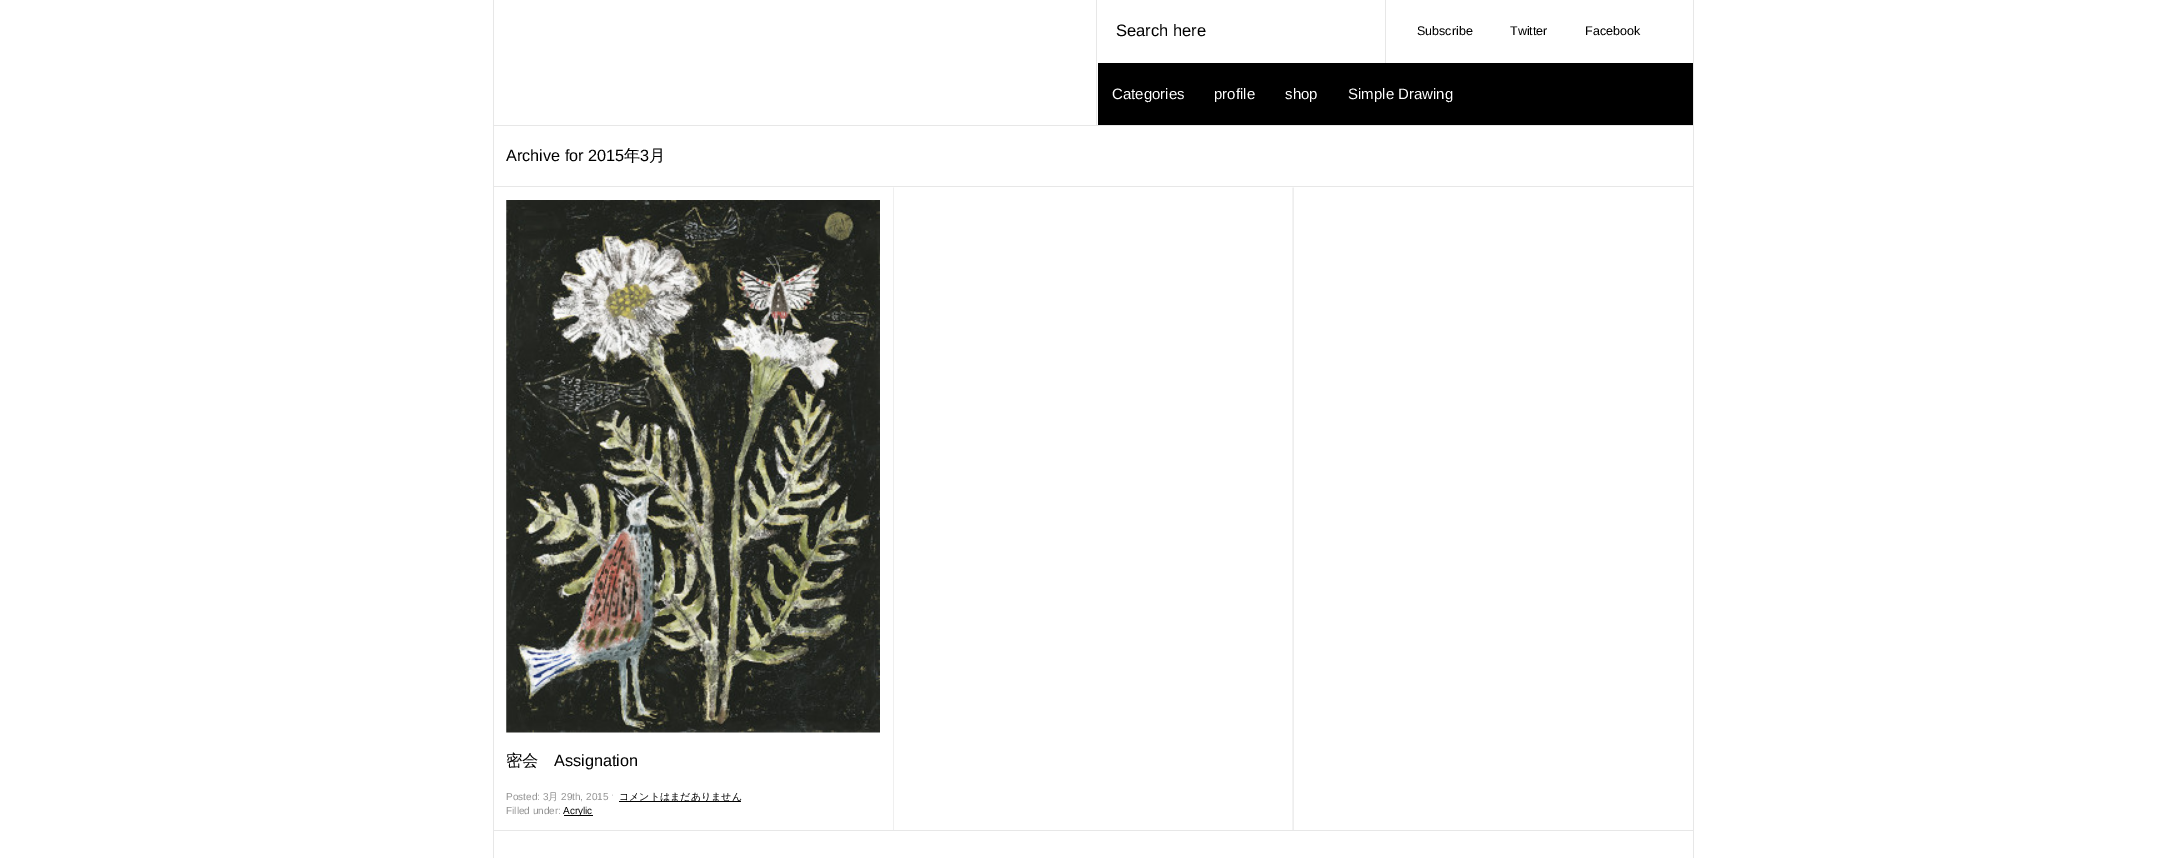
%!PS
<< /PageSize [2184 858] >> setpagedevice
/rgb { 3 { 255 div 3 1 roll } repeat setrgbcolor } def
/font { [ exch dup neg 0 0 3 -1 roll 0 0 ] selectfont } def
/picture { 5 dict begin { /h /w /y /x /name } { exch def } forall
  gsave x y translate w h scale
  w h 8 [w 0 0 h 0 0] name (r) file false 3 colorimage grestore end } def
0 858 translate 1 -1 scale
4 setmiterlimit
255 255 255 rgb
0 0 2184 858 rectfill
[
  [1693 0 1 858 231 231 231]
  [493 0 1 858 231 231 231]
  [494 125 1199 1 231 231 231]
  [1096 0 1 125 231 231 231]
  [1385 0 1 63 231 231 231]
  [1098 63 595 62 0 0 0]
  [494 186 1199 1 231 231 231]
] { aload pop rgb rectfill } forall
(img/1.rgb) 893 187 401 643 picture
(img/2.rgb) 506 200 374 533 picture
[
  [619 801 122 1 0 0 0]
  [564 815 29 1 0 0 0]
  [494 830 1199 1 231 231 231]
] { aload pop rgb rectfill } forall
/LiberationSans-Regular 16.5 font
0 0 0 rgb
1116 36 moveto (Search here) show
/LiberationSans-Regular 12.5 font
[
  [(Subscribe) 1417 35]
  [(Twitter) 1510 35]
  [(Facebook) 1585 35]
] { aload pop moveto show } forall
/LiberationSans-Regular 15 font
255 255 255 rgb
[
  [(Categories) 1112 99]
  [(profile) 1214 99]
  [(shop) 1285 99]
  [(Simple Drawing) 1348 99]
] { aload pop moveto show } forall
/LiberationSans-Regular 16.25 font
0 0 0 rgb
506 161 moveto (Archive for 2015) show
/WenQuanYiZenHei-Medium 16.25 font
624 161 moveto (年) show
/LiberationSans-Regular 16.25 font
640 161 moveto (3) show
/WenQuanYiZenHei-Medium 16.25 font
649 161 moveto (月) show
506 766 moveto (密会) show
/LiberationSans-Regular 16.25 font
554 766 moveto (Assignation) show
/LiberationSans-Regular 10 font
146 146 146 rgb
506 800 moveto (Posted: 3) show
/WenQuanYiZenHei-Medium 10 font
548 800 moveto (月) show
/LiberationSans-Regular 10 font
561 800 moveto (29th, 2015 ˑ) show
/WenQuanYiZenHei-Medium 10 font
0 0 0 rgb
619 800 moveto (コメントはまだありません) show
/LiberationSans-Regular 10 font
146 146 146 rgb
506 814 moveto (Filled under:) show
0 0 0 rgb
563 814 moveto (Acrylic) show
showpage
